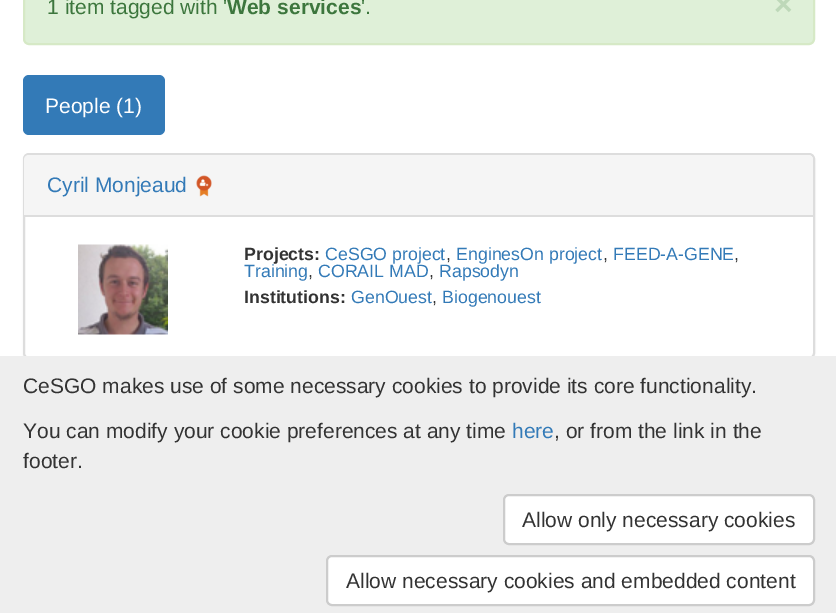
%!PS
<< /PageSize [836 613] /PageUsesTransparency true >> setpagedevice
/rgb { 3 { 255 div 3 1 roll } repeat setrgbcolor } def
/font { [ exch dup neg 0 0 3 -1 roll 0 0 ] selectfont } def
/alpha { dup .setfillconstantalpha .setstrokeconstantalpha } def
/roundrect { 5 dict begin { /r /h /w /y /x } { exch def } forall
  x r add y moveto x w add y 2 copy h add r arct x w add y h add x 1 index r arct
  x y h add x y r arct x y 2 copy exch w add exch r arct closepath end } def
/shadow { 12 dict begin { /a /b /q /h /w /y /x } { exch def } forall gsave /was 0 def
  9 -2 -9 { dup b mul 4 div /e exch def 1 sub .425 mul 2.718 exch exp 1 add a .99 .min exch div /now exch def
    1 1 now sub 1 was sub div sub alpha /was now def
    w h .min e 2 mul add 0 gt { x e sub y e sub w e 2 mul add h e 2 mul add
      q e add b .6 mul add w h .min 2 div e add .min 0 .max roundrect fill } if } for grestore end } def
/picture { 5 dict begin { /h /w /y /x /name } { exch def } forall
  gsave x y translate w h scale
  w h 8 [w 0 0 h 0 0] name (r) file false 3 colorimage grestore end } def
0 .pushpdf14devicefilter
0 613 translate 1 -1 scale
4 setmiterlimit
255 255 255 rgb
0 0 836 613 rectfill
223 240 216 rgb
24 -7 790 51 5 roundrect gsave fill grestore
214 233 198 rgb
2 setlinewidth
stroke
51 122 183 rgb
23 75 142 60 6 roundrect fill
0 0 0 rgb
23 155 792 205 6 1 0.05 shadow
255 255 255 rgb
24 154 790 204 5 roundrect gsave fill grestore
221 221 221 rgb
stroke
245 245 245 rgb
29 155 moveto 808 155 lineto 811 155 813 157 813 160 curveto 813 216 lineto 24 216 lineto 24 160 lineto 24 157 26 155 29 155 curveto closepath fill
221 221 221 rgb
24 215 789 2 rectfill
(img/1.rgb) 196 175 16 22 picture
(img/2.rgb) 78 244 90 91 picture
238 238 238 rgb
0 356 836 257 rectfill
255 255 255 rgb
504 495 310 49 5 roundrect gsave fill grestore
204 204 204 rgb
stroke
255 255 255 rgb
327 556 487 49 5 roundrect gsave fill grestore
204 204 204 rgb
stroke
/LiberationSans-Regular 21 font
60 118 61 rgb
47 14 moveto (1 item tagged with ') show
/LiberationSans-Bold 21 font
227 14 moveto (Web services) show
/LiberationSans-Regular 21 font
361 14 moveto ('.) show
/LiberationSans-Bold 32 font
190 216 185 rgb
774 15 moveto (×) show
/LiberationSans-Regular 21 font
255 255 255 rgb
45 113 moveto (People \(1\)) show
51 122 183 rgb
47 192 moveto (Cyril Monjeaud) show
/LiberationSans-Bold 17.75 font
51 51 51 rgb
244 260 moveto (Projects:) show
/LiberationSans-Regular 17.75 font
51 122 183 rgb
325 260 moveto (CeSGO project) show
51 51 51 rgb
446 260 moveto (,) show
51 122 183 rgb
456 260 moveto (EnginesOn project) show
51 51 51 rgb
603 260 moveto (,) show
51 122 183 rgb
613 260 moveto (FEED-A-GENE) show
51 51 51 rgb
734 260 moveto (,) show
51 122 183 rgb
244 277 moveto (Training) show
51 51 51 rgb
308 277 moveto (,) show
51 122 183 rgb
318 277 moveto (CORAIL MAD) show
51 51 51 rgb
429 277 moveto (,) show
51 122 183 rgb
439 277 moveto (Rapsodyn) show
/LiberationSans-Bold 17.75 font
51 51 51 rgb
244 303 moveto (Institutions:) show
/LiberationSans-Regular 17.75 font
51 122 183 rgb
351 303 moveto (GenOuest) show
51 51 51 rgb
432 303 moveto (,) show
51 122 183 rgb
442 303 moveto (Biogenouest) show
/LiberationSans-Regular 21 font
51 51 51 rgb
23 393 moveto (CeSGO makes use of some necessary cookies to provide its core functionality.) show
23 438 moveto (You can modify your cookie preferences at any time) show
51 122 183 rgb
512 438 moveto (here) show
51 51 51 rgb
[
  [(, or from the link in the) 554 438]
  [(footer.) 23 468]
  [(Allow only necessary cookies) 522 527]
  [(Allow necessary cookies and embedded content) 346 588]
] { aload pop moveto show } forall
.poppdf14devicefilter showpage
